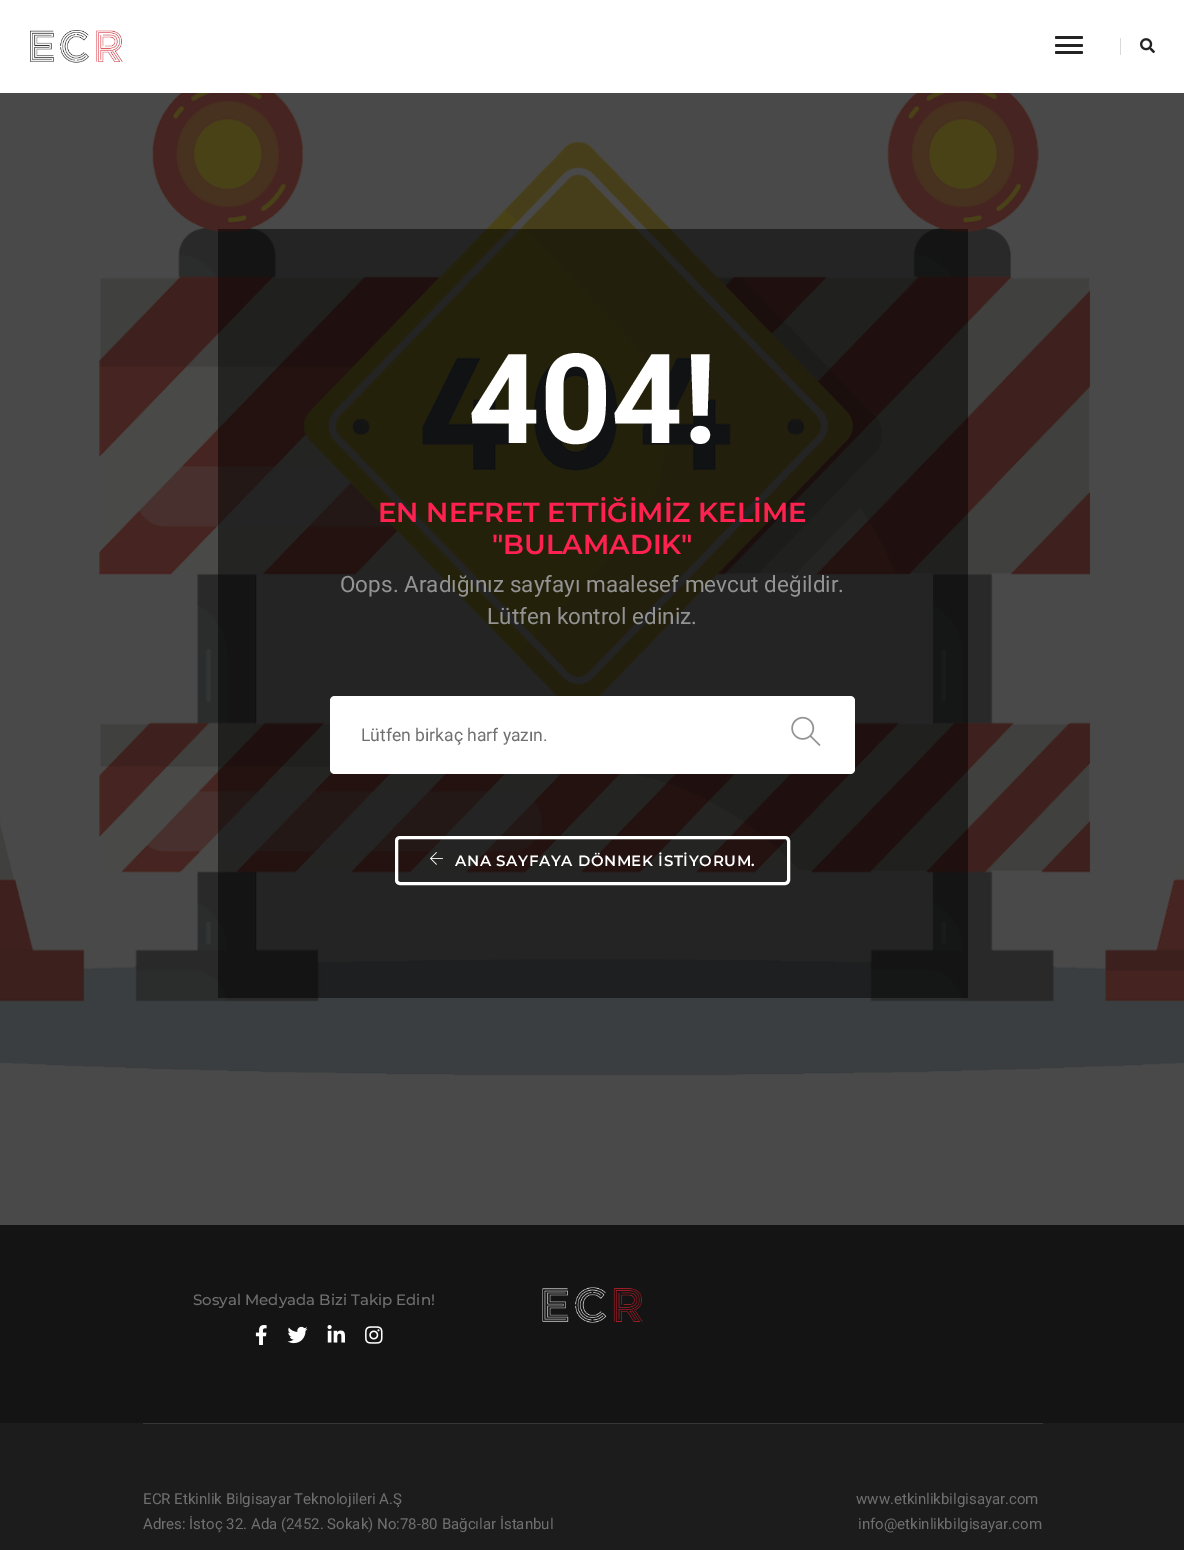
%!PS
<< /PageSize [1184 1550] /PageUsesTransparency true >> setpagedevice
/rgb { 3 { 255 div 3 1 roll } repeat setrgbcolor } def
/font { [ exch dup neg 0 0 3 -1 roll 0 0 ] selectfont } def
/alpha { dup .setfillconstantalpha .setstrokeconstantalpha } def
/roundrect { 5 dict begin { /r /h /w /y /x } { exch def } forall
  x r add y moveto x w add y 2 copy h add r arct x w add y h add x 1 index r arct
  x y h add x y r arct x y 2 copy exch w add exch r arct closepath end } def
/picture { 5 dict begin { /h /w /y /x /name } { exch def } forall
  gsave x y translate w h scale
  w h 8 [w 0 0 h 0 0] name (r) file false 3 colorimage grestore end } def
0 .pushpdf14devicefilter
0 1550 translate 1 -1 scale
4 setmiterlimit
73 73 73 rgb
0 0 1184 1550 rectfill
255 255 255 rgb
0 0 1184 93 rectfill
(img/1.rgb) 30 30 93 33 picture
35 35 35 rgb
1055 36 28 3 1.5 roundrect fill
1055 44 28 3 1.5 roundrect fill
1055 51 28 3 1.5 roundrect fill
217 217 217 rgb
1120 38 1 17 rectfill
(img/2.rgb) 1140 38 15 16 picture
(img/3.rgb) 0 93 1184 983 picture
0.5 alpha
0 0 0 rgb
218 229 750 769 rectfill
1 alpha
255 255 255 rgb
335 696 moveto 759 696 lineto 759 774 lineto 335 774 lineto 332 774 330 772 330 769 curveto 330 701 lineto 330 698 332 696 335 696 curveto closepath fill
758 696 moveto 850 696 lineto 853 696 855 698 855 701 curveto 855 769 lineto 855 772 853 774 850 774 curveto 758 774 lineto closepath fill
(img/4.rgb) 791 716 30 30 picture
3 setlinewidth
396.5 837.5 392 46 3.5 roundrect stroke
(img/5.rgb) 430 852 13 13 picture
28 28 28 rgb
0 1423 1184 127 rectfill
20 20 20 rgb
0 1225 1184 198 rectfill
(img/6.rgb) 255 1325 12 20 picture
(img/7.rgb) 287 1326 21 18 picture
(img/8.rgb) 327 1325 18 18 picture
(img/9.rgb) 365 1326 18 18 picture
(img/10.rgb) 542 1287 101 36 picture
54 54 54 rgb
143 1423 900 1 rectfill
/Roboto-Bold 125 font
255 255 255 rgb
468 443 moveto (404!) show
/Montserrat-SemiBold 27.5 font
255 33 79 rgb
378 522 moveto (EN NEFRET ETTİĞİMİZ KELİME) show
492 554 moveto ("BULAMADIK") show
/Roboto-Regular 22.5 font
147 147 147 rgb
340 592 moveto (Oops. Aradığınız sayfayı maalesef mevcut değildir.) show
487 624 moveto (Lütfen kontrol ediniz.) show
/Roboto-Regular 17.5 font
111 111 111 rgb
361 741 moveto (Lütfen birkaç harf yazın.) show
/Montserrat-SemiBold 15 font
255 255 255 rgb
455 866 moveto 0.6 0 (ANA SAYFAYA DÖNMEK İSTİYORUM.) ashow
/Montserrat-Medium 15 font
111 111 111 rgb
193 1305 moveto (Sosyal Medyada Bizi Takip Edin!) show
/Roboto-Regular 15 font
[
  [(ECR Etkinlik Bilgisayar Teknolojileri A.Ş) 143 1504]
  [(Adres: İstoç 32. Ada \(2452. Sokak\) No:78-80 Bağcılar İstanbul) 143 1529]
  [(www.etkinlikbilgisayar.com) 856 1504]
  [(info@etkinlikbilgisayar.com) 858 1529]
] { aload pop moveto show } forall
.poppdf14devicefilter showpage
